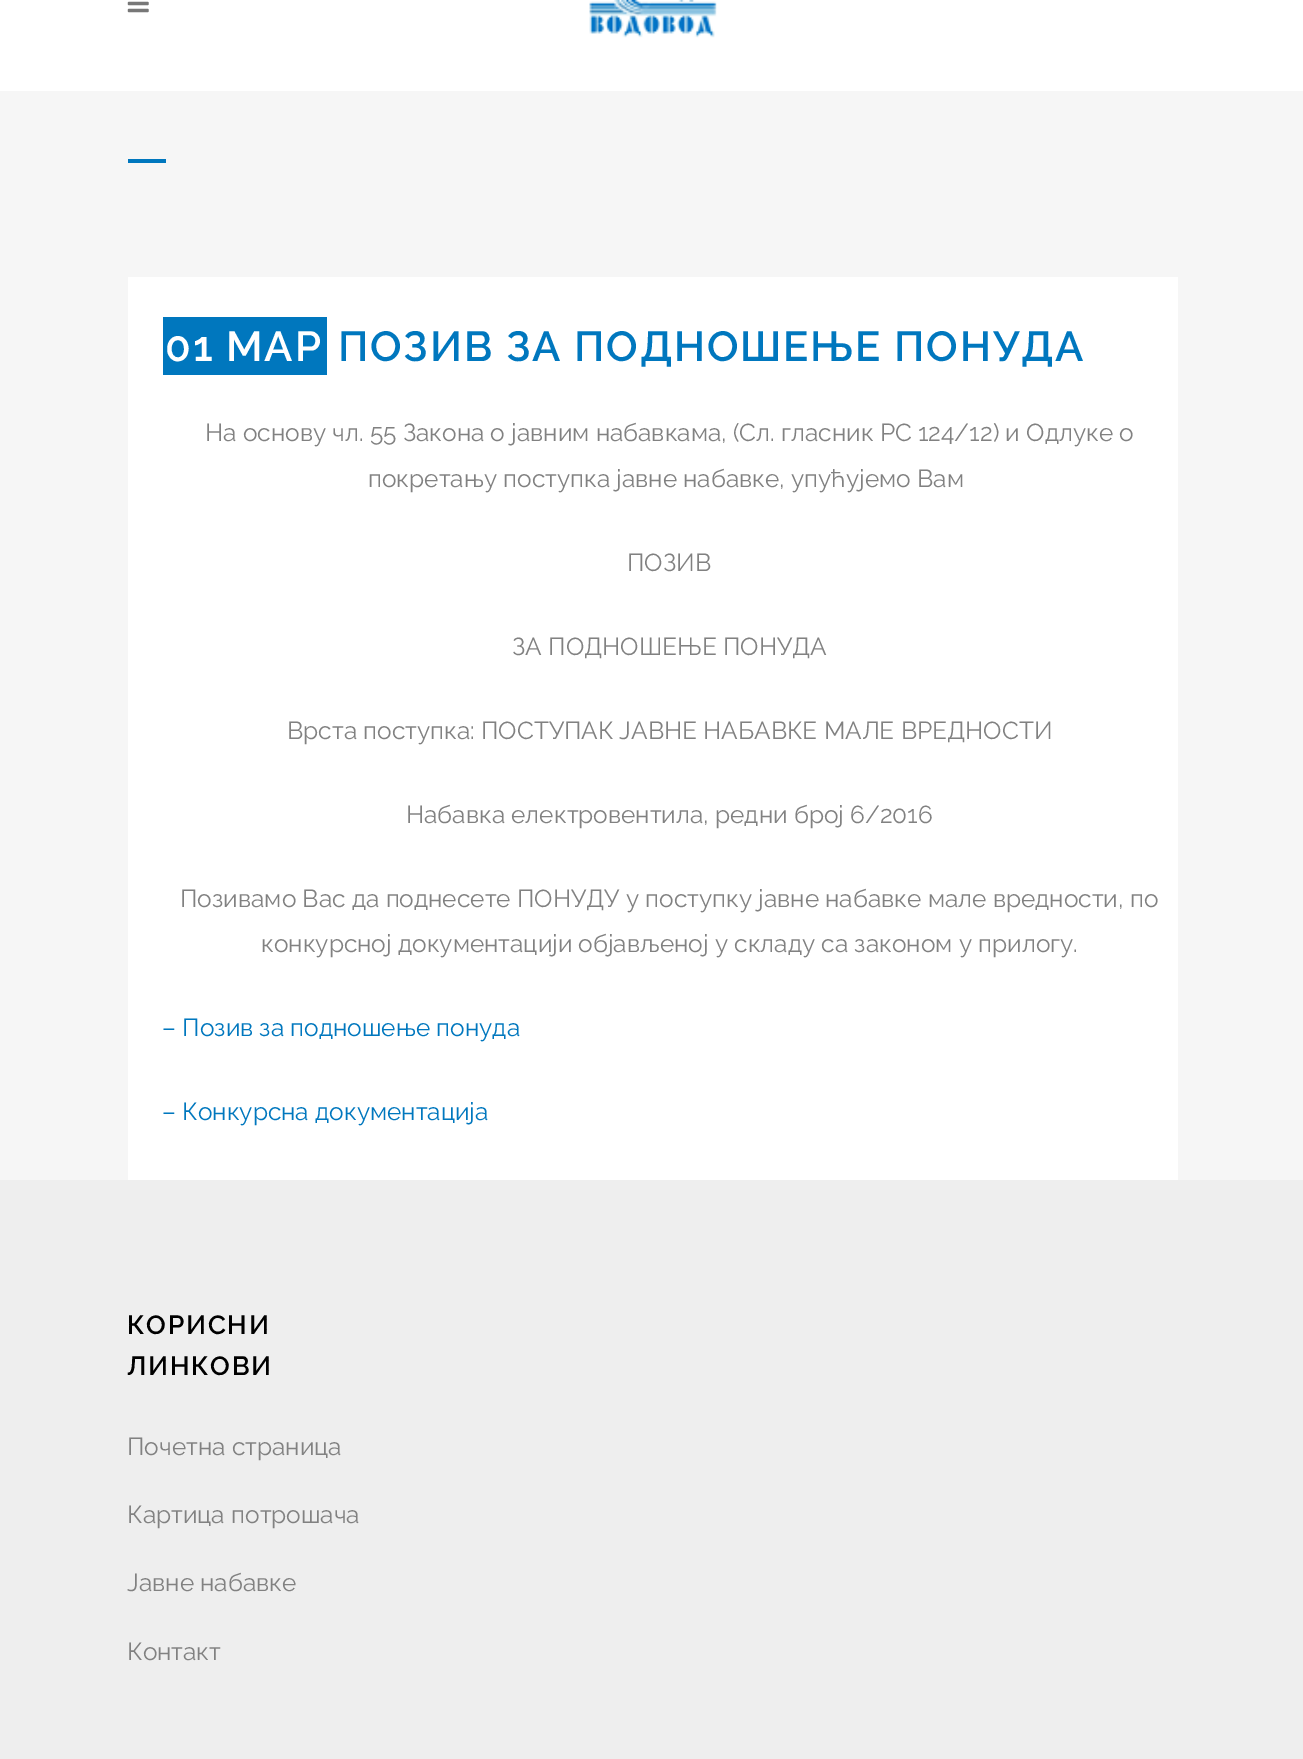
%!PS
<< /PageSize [1303 1759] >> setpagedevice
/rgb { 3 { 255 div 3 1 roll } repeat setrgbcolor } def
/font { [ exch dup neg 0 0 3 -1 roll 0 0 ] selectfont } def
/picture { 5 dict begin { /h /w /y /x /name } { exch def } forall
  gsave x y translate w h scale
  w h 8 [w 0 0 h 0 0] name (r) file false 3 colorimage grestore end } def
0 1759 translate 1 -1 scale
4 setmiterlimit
246 246 246 rgb
0 0 1303 1759 rectfill
255 255 255 rgb
0 0 1303 91 rectfill
(img/1.rgb) 127 1 22 12 picture
(img/2.rgb) 589 0 128 38 picture
[
  [128 159 38 4 0 119 190]
  [128 277 1050 903 255 255 255]
  [163 317 164 58 0 119 190]
  [0 1180 1303 579 238 238 238]
] { aload pop rgb rectfill } forall
/Raleway-SemiBold 42 font
255 255 255 rgb
165 361 moveto 1.75 0 (01 МАР) ashow
0 119 190 rgb
338 361 moveto 1.75 0 (ПОЗИВ ЗА ПОДНОШЕЊЕ ПОНУДА) ashow
/Raleway-Regular 24.5 font
129 129 129 rgb
[
  [(На основу чл. 55 Закона о јавним набавкама, \(Сл. гласник РС 124/12\) и Одлуке о) 205 441]
  [(покретању поступка јавне набавке, упућујемо Вам) 368 487]
  [(ПOЗИВ) 627 571]
  [(ЗА ПОДНОШЕЊЕ ПОНУДА) 512 655]
  [(Врста поступка: ПОСТУПАК ЈАВНЕ НАБАВКЕ МАЛЕ ВРЕДНОСТИ) 287 739]
  [(Набавка електровентила, редни број 6/2016) 406 823]
  [(Позивамо Вас да поднесете ПОНУДУ у поступку јавне набавке мале вредности, по) 180 907]
  [(конкурсној документацији објављеној у складу са законом у прилогу.) 261 952]
] { aload pop moveto show } forall
0 119 190 rgb
162 1036 moveto (– Позив за подношење понуда) show
162 1120 moveto (– Конкурсна документација) show
/Raleway-SemiBold 26.25 font
0 0 0 rgb
127 1334 moveto 1.75 0 (КОРИСНИ) ashow
127 1375 moveto 1.75 0 (ЛИНКОВИ) ashow
/Raleway-Regular 24.5 font
129 129 129 rgb
[
  [(Почетна страница) 127 1455]
  [(Картица потрошача) 127 1523]
  [(Јавне набавке) 127 1591]
  [(Контакт) 127 1660]
] { aload pop moveto show } forall
showpage
